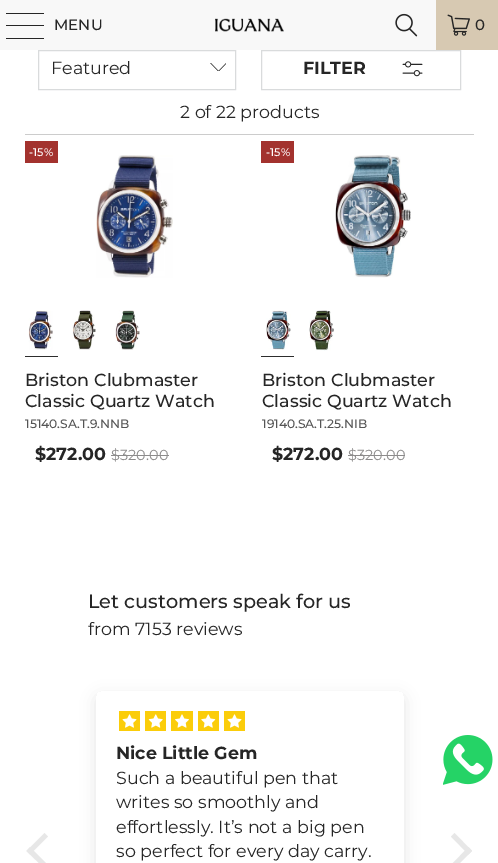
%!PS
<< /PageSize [498 863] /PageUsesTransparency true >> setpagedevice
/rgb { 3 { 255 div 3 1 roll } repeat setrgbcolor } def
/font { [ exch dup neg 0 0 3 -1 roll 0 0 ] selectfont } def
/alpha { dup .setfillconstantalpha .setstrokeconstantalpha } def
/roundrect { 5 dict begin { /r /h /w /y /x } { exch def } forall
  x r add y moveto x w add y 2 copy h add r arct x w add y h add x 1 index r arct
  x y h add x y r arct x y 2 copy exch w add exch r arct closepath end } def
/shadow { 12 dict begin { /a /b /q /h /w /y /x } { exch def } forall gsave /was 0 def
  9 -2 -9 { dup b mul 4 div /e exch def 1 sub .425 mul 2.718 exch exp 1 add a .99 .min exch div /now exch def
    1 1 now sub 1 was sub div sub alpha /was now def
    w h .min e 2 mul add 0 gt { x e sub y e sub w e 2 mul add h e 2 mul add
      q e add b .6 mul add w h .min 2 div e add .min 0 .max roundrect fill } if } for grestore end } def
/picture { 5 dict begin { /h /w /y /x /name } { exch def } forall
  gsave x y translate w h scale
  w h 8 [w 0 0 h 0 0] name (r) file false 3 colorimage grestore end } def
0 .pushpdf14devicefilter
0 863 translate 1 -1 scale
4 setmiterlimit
255 255 255 rgb
0 0 498 863 rectfill
248 248 248 rgb
0 0 436 50 rectfill
38 38 38 rgb
6 13 38 1 0.5 roundrect fill
6 25 38 1 0.5 roundrect fill
6 38 38 1 0.5 roundrect fill
(img/1.rgb) 215 18 69 14 picture
(img/2.rgb) 395 13 23 24 picture
215 201 178 rgb
436 0 62 50 rectfill
(img/3.rgb) 447 14 23 22 picture
204 204 204 rgb
25 134 449 1 rectfill
217 219 220 rgb
38.5 50.5 197 39 rectstroke
(img/4.rgb) 210 63 16 8 picture
261.5 50.5 199 39 rectstroke
(img/5.rgb) 402 61 21 16 picture
163 50 46 rgb
25 141 33 22 rectfill
(img/6.rgb) 96 155 77 123 picture
45 45 45 rgb
25 356 33 1 rectfill
(img/7.rgb) 28 310 25 40 picture
(img/8.rgb) 72 310 24 40 picture
(img/9.rgb) 115 310 25 40 picture
140 139 139 rgb
111 455 58 1 rectfill
163 50 46 rgb
261 141 33 22 rectfill
(img/10.rgb) 335 155 76 123 picture
45 45 45 rgb
261 356 33 1 rectfill
(img/11.rgb) 266 310 25 40 picture
(img/12.rgb) 309 310 25 41 picture
140 139 139 rgb
348 455 57 1 rectfill
gsave
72 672 moveto 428 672 lineto 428 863 lineto 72 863 lineto closepath 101 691 moveto 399 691 lineto 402 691 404 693 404 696 curveto 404 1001 lineto 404 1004 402 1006 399 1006 curveto 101 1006 lineto 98 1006 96 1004 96 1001 curveto 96 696 lineto 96 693 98 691 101 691 curveto closepath eoclip newpath
0 0 0 rgb
96 696 308 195 5 7.5 0.1 shadow
grestore
[
  [119 711 21 20 251 205 10]
  [145 711 21 20 251 205 10]
  [171 711 22 20 251 205 10]
  [198 711 21 20 251 205 10]
  [224 711 21 20 251 205 10]
] { aload pop rgb rectfill } forall
(img/13.rgb) 122 714 15 14 picture
(img/14.rgb) 148 714 15 14 picture
(img/15.rgb) 175 714 14 14 picture
(img/16.rgb) 201 714 15 14 picture
(img/13.rgb) 227 714 15 14 picture
231 231 231 rgb
26.5 851 moveto 44.5 833 lineto 48 836.5 lineto 30 854.5 lineto closepath fill
26.5 851 moveto 30 847 lineto 48 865 lineto 44.5 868.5 lineto closepath fill
451 836.5 moveto 454.5 833 lineto 472 851 lineto 468.5 854.5 lineto closepath fill
451 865 moveto 468.5 847 lineto 472 851 lineto 454.5 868.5 lineto closepath fill
(img/17.rgb) 443 735 50 50 picture
/Montserrat-Medium 15 font
38 38 38 rgb
54 30 moveto (MENU) show
475 30 moveto (0) show
/Montserrat-Regular 17.5 font
51 74 moveto (Featured) show
/Montserrat-Bold 17.5 font
303 74 moveto (FILTER) show
/Montserrat-Regular 17.5 font
180 118 moveto (2 of 22 products) show
/Montserrat-Medium 11 font
255 255 255 rgb
29 156 moveto (-15%) show
/Montserrat-Medium 17.5 font
38 38 38 rgb
25 386 moveto (Briston Clubmaster) show
25 407 moveto (Classic Quartz Watch) show
/Montserrat-Medium 12.25 font
85 85 85 rgb
25 428 moveto (15140.SA.T.9.NNB) show
/Montserrat-Bold 17.5 font
38 38 38 rgb
35 460 moveto ($272.00) show
/Montserrat-Regular 14.5 font
140 139 139 rgb
111 460 moveto ($320.00) show
/Montserrat-Medium 11 font
255 255 255 rgb
266 156 moveto (-15%) show
/Montserrat-Medium 17.5 font
38 38 38 rgb
262 386 moveto (Briston Clubmaster) show
262 407 moveto (Classic Quartz Watch) show
/Montserrat-Medium 12.25 font
85 85 85 rgb
262 428 moveto (19140.SA.T.25.NIB) show
/Montserrat-Bold 17.5 font
38 38 38 rgb
272 460 moveto ($272.00) show
/Montserrat-Regular 14.5 font
140 139 139 rgb
348 460 moveto ($320.00) show
/Montserrat-Medium 19.25 font
38 38 38 rgb
88 608 moveto (Let customers speak for us) show
/Montserrat-Regular 17.5 font
88 635 moveto (from 7153 reviews) show
/Montserrat-Bold 17.5 font
116 759 moveto (Nice Little Gem) show
/Montserrat-Regular 17.5 font
[
  [(Such a beautiful pen that) 116 784]
  [(writes so smoothly and) 116 808]
  [(effortlessly. It’s not a big pen) 116 833]
  [(so perfect for every day carry.) 116 857]
] { aload pop moveto show } forall
.poppdf14devicefilter showpage
